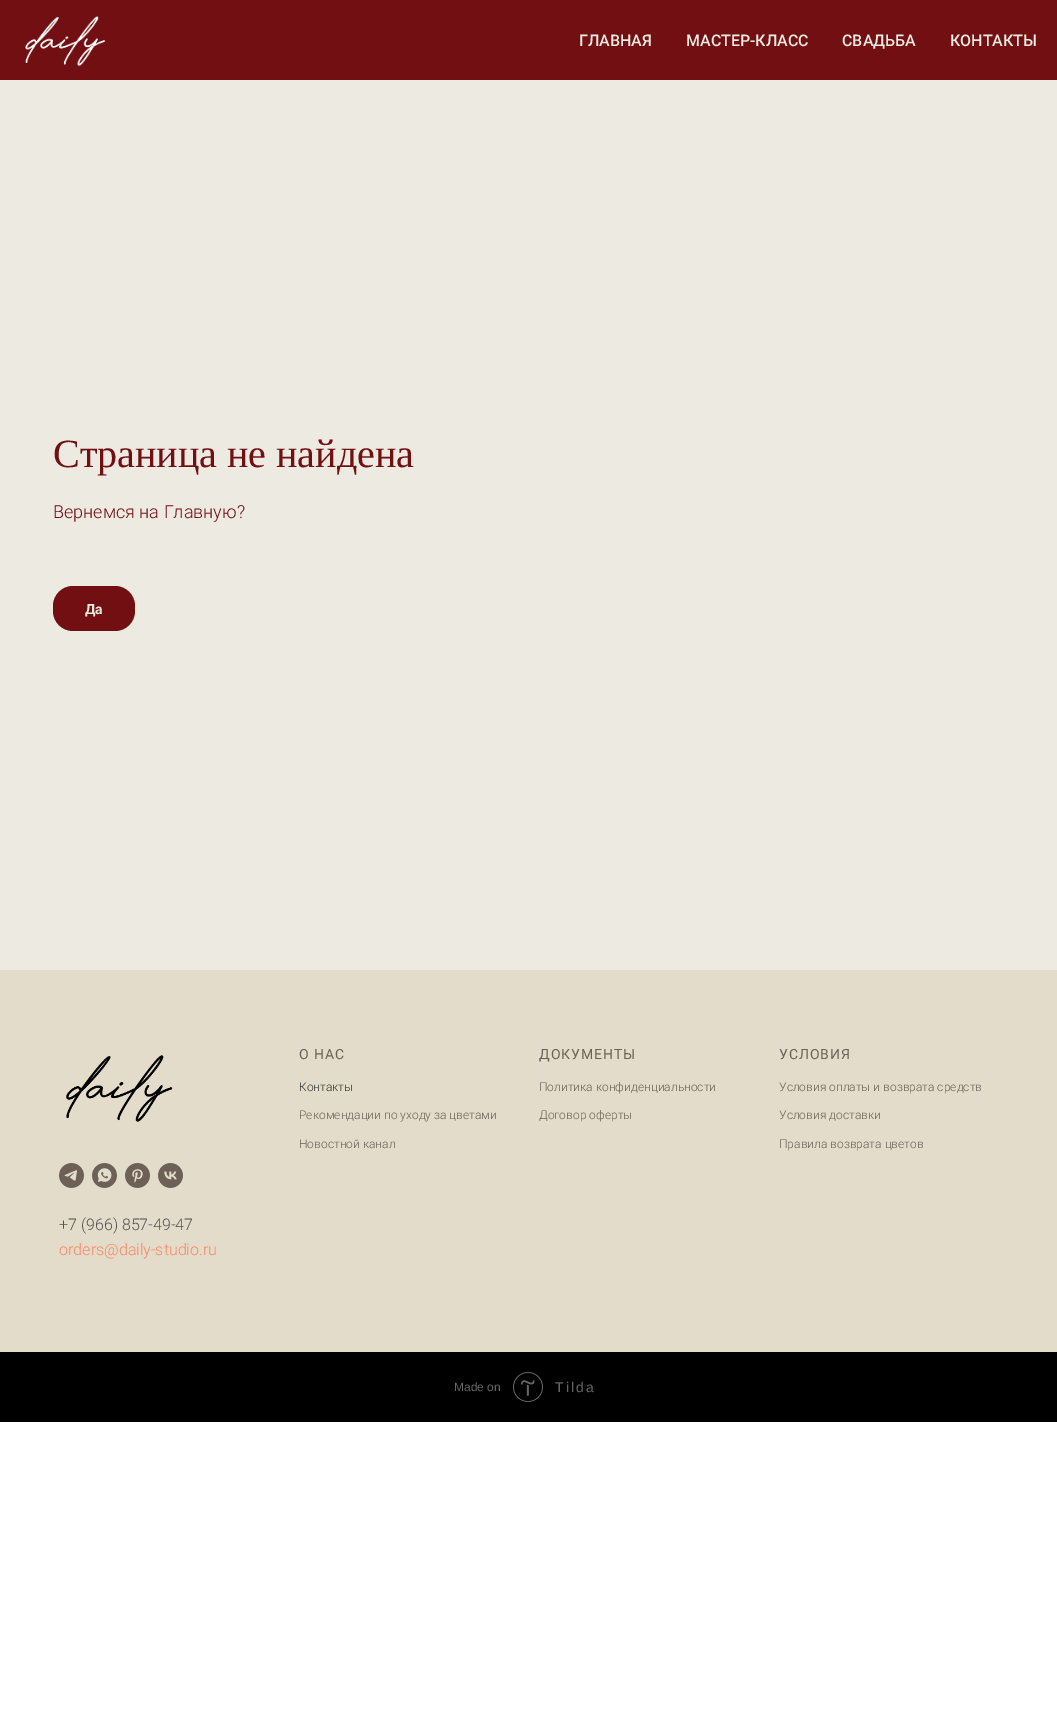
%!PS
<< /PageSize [1057 1709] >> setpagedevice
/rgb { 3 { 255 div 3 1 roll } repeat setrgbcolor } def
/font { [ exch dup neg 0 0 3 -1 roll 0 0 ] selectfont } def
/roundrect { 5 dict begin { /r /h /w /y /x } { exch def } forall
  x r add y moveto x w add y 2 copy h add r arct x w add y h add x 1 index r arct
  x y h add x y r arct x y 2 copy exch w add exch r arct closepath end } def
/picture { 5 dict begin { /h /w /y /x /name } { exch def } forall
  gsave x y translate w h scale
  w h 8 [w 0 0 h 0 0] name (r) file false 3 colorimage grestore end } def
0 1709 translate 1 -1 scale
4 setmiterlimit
255 255 255 rgb
0 0 1057 1709 rectfill
114 15 18 rgb
0 0 1057 80 rectfill
(img/1.rgb) 25 16 81 50 picture
236 234 225 rgb
0 80 1057 890 rectfill
114 15 18 rgb
53 586 82 45 20 roundrect fill
227 220 202 rgb
0 970 1057 382 rectfill
(img/2.rgb) 66 1055 106 67 picture
(img/3.rgb) 59 1163 25 25 picture
(img/4.rgb) 92 1163 25 25 picture
(img/5.rgb) 125 1163 25 25 picture
(img/6.rgb) 158 1163 25 25 picture
0 0 0 rgb
0 1352 1057 70 rectfill
(img/7.rgb) 513 1372 30 30 picture
/Roboto-Medium 16 font
236 234 225 rgb
[
  [(ГЛАВНАЯ) 579 46]
  [(МАСТЕР-КЛАСС) 686 46]
  [(СВАДЬБА) 842 46]
  [(КОНТАКТЫ) 950 46]
] { aload pop moveto show } forall
/LiberationSerif-Regular 40 font
114 15 18 rgb
53 467 moveto (Страница не найдена) show
/Roboto-Light 18 font
53 518 moveto (Вернемся на Главную?) show
/Roboto-Bold 14 font
236 234 225 rgb
85 614 moveto (Да) show
/Roboto-Regular 14 font
108 96 87 rgb
299 1059 moveto 1 0 (О НАС) ashow
/Roboto-Light 12 font
51 51 51 rgb
299 1091 moveto (Контакты) show
108 96 87 rgb
299 1119 moveto (Рекомендации по уходу за цветами) show
299 1148 moveto (Новостной канал) show
/Roboto-Regular 14 font
539 1059 moveto 1 0 (ДОКУМЕНТЫ) ashow
/Roboto-Light 12 font
539 1091 moveto (Политика конфиденциальности) show
539 1119 moveto (Договор оферты) show
/Roboto-Regular 14 font
779 1059 moveto 1 0 (УСЛОВИЯ) ashow
/Roboto-Light 12 font
[
  [(Условия оплаты и возврата средств) 779 1091]
  [(Условия доставки) 779 1119]
  [(Правила возврата цветов) 779 1148]
] { aload pop moveto show } forall
/Roboto-Light 16 font
82 82 82 rgb
59 1230 moveto (+7 \(966\) 857-49-47) show
255 133 98 rgb
59 1255 moveto (orders@daily-studio.ru) show
/LiberationSans-Regular 12 font
102 102 102 rgb
454 1391 moveto (Made on) show
/LiberationSans-Regular 14 font
555 1392 moveto 2 0 (Tilda) ashow
showpage
